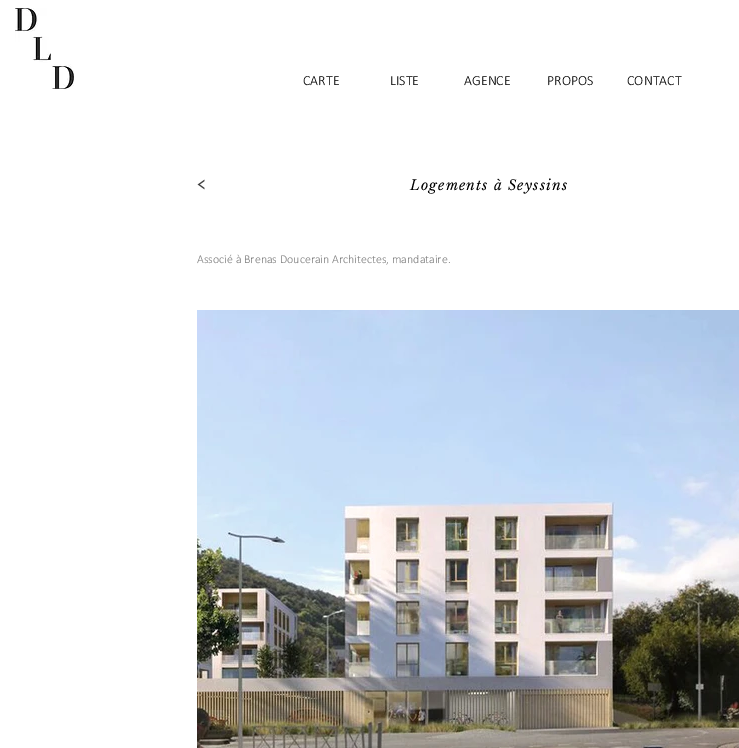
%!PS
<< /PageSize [739 748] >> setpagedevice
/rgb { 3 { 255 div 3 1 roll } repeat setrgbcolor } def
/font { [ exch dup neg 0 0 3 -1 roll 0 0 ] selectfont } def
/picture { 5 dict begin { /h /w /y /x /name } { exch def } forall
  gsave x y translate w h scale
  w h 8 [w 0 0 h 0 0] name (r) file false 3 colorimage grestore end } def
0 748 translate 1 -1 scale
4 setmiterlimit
255 255 255 rgb
0 0 739 748 rectfill
(img/1.rgb) 15 8 59 81 picture
(img/2.rgb) 197 179 8 11 picture
(img/3.rgb) 197 310 542 438 picture
/Calibri-Light 14 font
0 0 0 rgb
[
  [(CARTE) 303 85]
  [(LISTE) 390 85]
  [(AGENCE) 464 85]
  [(PROPOS) 547 85]
  [(CONTACT) 627 85]
] { aload pop moveto show } forall
/LibreBaskerville-Italic 14 font
410 190 moveto 1.1 0 (Logements à Seyssins) ashow
/Calibri-Light 12 font
125 125 125 rgb
197 263 moveto (Associé à Brenas Doucerain Architectes, mandataire.) show
showpage
